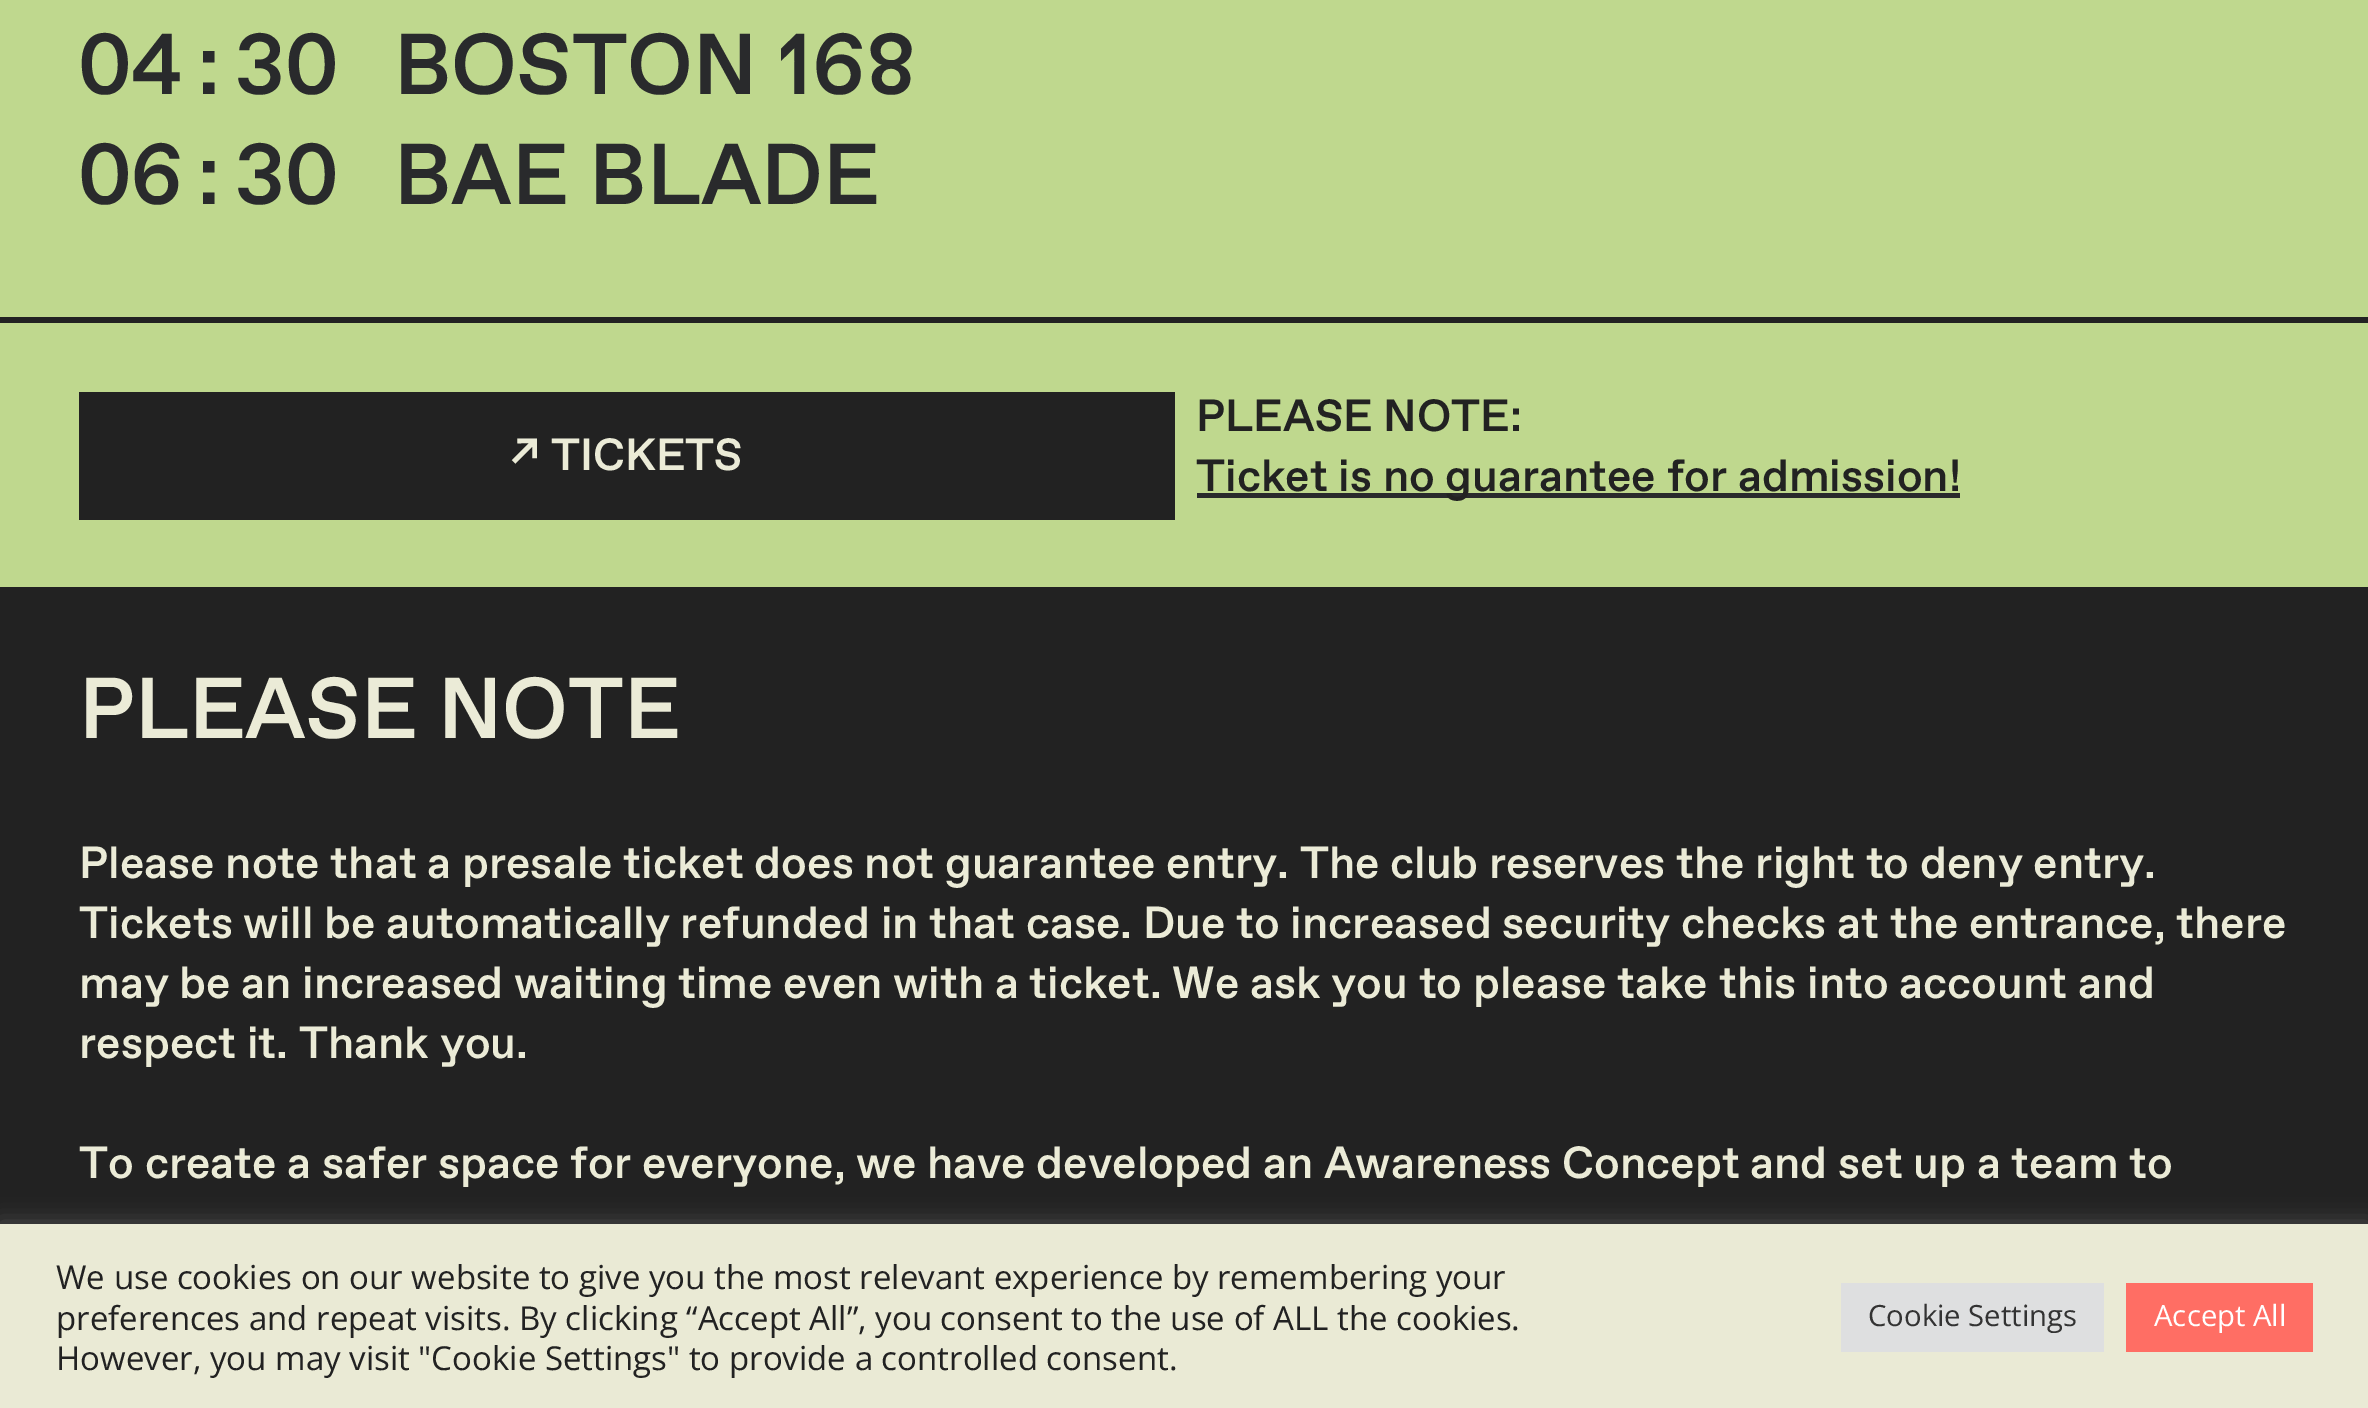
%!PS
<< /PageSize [2368 1408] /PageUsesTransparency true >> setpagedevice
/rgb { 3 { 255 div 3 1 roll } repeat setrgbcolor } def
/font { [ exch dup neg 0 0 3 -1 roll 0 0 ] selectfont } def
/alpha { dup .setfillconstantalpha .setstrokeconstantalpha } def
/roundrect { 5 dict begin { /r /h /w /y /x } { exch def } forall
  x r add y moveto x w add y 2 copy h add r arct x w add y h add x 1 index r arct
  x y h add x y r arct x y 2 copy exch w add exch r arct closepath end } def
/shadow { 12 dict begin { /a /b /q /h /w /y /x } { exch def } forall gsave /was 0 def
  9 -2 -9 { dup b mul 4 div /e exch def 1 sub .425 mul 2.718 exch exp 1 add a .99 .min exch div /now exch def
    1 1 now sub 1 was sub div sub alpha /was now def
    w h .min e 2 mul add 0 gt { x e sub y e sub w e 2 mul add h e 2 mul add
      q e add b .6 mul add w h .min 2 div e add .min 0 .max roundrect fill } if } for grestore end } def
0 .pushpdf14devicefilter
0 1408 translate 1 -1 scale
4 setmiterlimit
34 34 34 rgb
0 0 2368 1408 rectfill
[
  [0 0 2368 317 191 216 142]
  [0 323 2368 264 191 216 142]
  [79 392 1096 128 34 34 34]
  [1197 493 763 5 41 42 44]
] { aload pop rgb rectfill } forall
172 171 171 rgb
0 1222 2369 184 0 11 0.3 shadow
[
  [0 1224 2368 184 234 234 213]
  [1841 1283 263 69 222 223 224]
  [2126 1283 187 69 255 110 100]
] { aload pop rgb rectfill } forall
/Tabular-Medium 86.25 font
41 42 44 rgb
79 94 moveto (04:30) show
/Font-Medium 86.25 font
394 94 moveto (BOSTON 168) show
/Tabular-Medium 86.25 font
79 204 moveto (06:30) show
/Font-Medium 86.25 font
394 204 moveto (BAE BLADE) show
/Font-Medium 45 font
235 235 215 rgb
510 470 moveto (↗ TICKETS) show
34 34 34 rgb
1196 431 moveto (PLEASE NOTE:) show
1196 491 moveto (Ticket is no guarantee for admission!) show
/Font-Medium 86.25 font
235 235 215 rgb
79 738 moveto (PLEASE NOTE) show
/Font-Medium 45 font
[
  [(Please note that a presale ticket does not guarantee entry. The club reserves the right to deny entry.) 79 878]
  [(Tickets will be automatically refunded in that case. Due to increased security checks at the entrance, there) 79 938]
  [(may be an increased waiting time even with a ticket. We ask you to please take this into account and) 79 998]
  [(respect it. Thank you.) 79 1058]
  [(To create a safer space for everyone, we have developed an Awareness Concept and set up a team to) 79 1178]
] { aload pop moveto show } forall
/OpenSans-Regular 33 font
34 34 34 rgb
[
  [(We use cookies on our website to give you the most relevant experience by remembering your) 56 1289]
  [(preferences and repeat visits. By clicking “Accept All”, you consent to the use of ALL the cookies.) 56 1330]
  [(However, you may visit "Cookie Settings" to provide a controlled consent.) 56 1370]
] { aload pop moveto show } forall
/OpenSans-Regular 29.25 font
51 51 51 rgb
1868 1326 moveto (Cookie Settings) show
255 255 255 rgb
2154 1326 moveto (Accept All) show
.poppdf14devicefilter showpage
